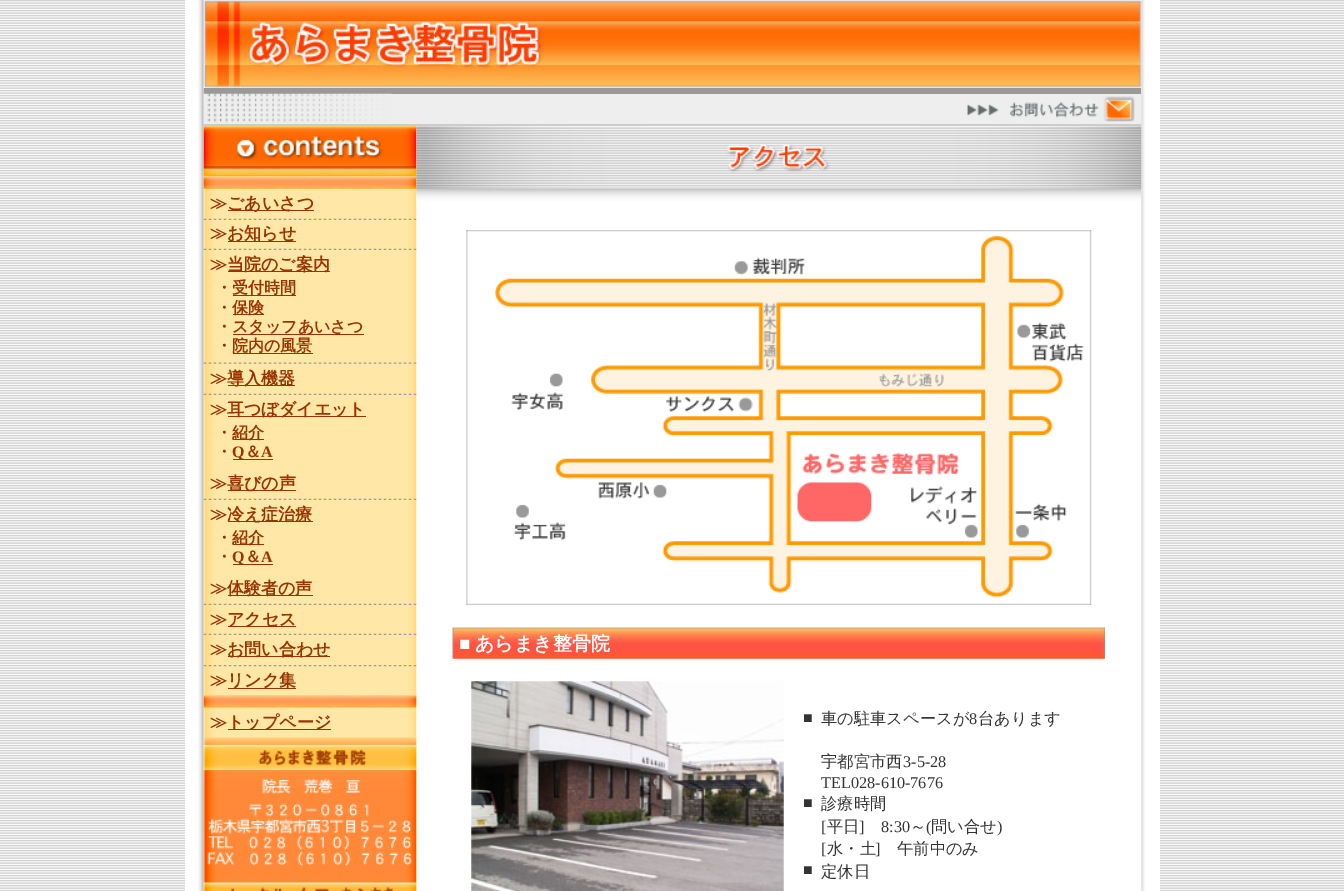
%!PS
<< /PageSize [1344 891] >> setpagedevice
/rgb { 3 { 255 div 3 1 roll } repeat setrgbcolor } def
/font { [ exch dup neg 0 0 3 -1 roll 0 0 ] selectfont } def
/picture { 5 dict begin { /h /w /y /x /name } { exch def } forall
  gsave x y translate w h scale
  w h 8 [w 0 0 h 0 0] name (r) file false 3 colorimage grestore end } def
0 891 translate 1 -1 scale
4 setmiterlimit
255 255 255 rgb
0 0 1344 891 rectfill
(img/1.rgb) 0 0 1344 891 picture
185 0 975 891 rectfill
(img/2.rgb) 198 0 6 891 picture
(img/6.rgb) 203 126 214 765 picture
(img/15.rgb) 416 188 726 14 picture
(img/19.rgb) 1141 0 4 891 picture
(img/3.rgb) 203 0 939 88 picture
153 153 153 rgb
204 88 937 6 rectfill
238 238 238 rgb
204 94 937 30 rectfill
(img/4.rgb) 203 93 189 31 picture
(img/5.rgb) 967 96 168 26 picture
204 204 204 rgb
204 124 937 2 rectfill
(img/7.rgb) 203 126 214 51 picture
(img/8.rgb) 203 176 214 13 picture
153 51 0 rgb
228 210 86 1 rectfill
(img/9.rgb) 203 218 214 2 picture
228 241 68 1 rectfill
(img/9.rgb) 203 248 214 2 picture
[
  [228 271 102 1 153 51 0]
  [233 295 63 1 153 51 0]
  [233 314 31 1 153 51 0]
  [233 334 131 1 153 51 0]
  [233 353 80 1 153 51 0]
] { aload pop rgb rectfill } forall
(img/10.rgb) 203 362 214 2 picture
228 385 67 1 rectfill
(img/9.rgb) 203 393 214 2 picture
[
  [228 416 138 1 153 51 0]
  [233 439 31 1 153 51 0]
  [233 459 40 1 153 51 0]
  [228 490 68 1 153 51 0]
] { aload pop rgb rectfill } forall
(img/9.rgb) 203 498 214 2 picture
[
  [228 521 85 1 153 51 0]
  [233 544 31 1 153 51 0]
  [233 564 40 1 153 51 0]
  [228 595 85 1 153 51 0]
] { aload pop rgb rectfill } forall
(img/9.rgb) 203 603 214 2 picture
228 626 68 1 rectfill
(img/9.rgb) 203 633 214 2 picture
228 656 102 1 rectfill
(img/11.rgb) 203 665 214 2 picture
228 688 68 1 rectfill
(img/12.rgb) 203 695 214 13 picture
228 729 103 1 rectfill
(img/13.rgb) 203 737 214 154 picture
(img/14.rgb) 416 126 726 63 picture
(img/16.rgb) 466 230 626 375 picture
(img/17.rgb) 452 627 653 32 picture
(img/18.rgb) 471 681 313 210 picture
/WenQuanYiZenHei-Bold 17 font
[
  [(≫) 210 209]
  [(ごあいさつ) 227 209]
  [(≫) 210 239]
  [(お知らせ) 227 239]
  [(≫) 210 270]
  [(当院のご案内) 227 270]
] { aload pop moveto show } forall
/WenQuanYiZenHei-Bold 16 font
[
  [(・) 216 293]
  [(受付時間) 232 293]
  [(・) 216 313]
  [(保険) 232 313]
  [(・) 216 332]
  [(スタッフあいさつ) 232 332]
  [(・) 216 351]
  [(院内の風景) 232 351]
] { aload pop moveto show } forall
/WenQuanYiZenHei-Bold 17 font
[
  [(≫) 210 384]
  [(導入機器) 227 384]
  [(≫) 210 415]
  [(耳つぼダイエット) 227 415]
] { aload pop moveto show } forall
/WenQuanYiZenHei-Bold 16 font
[
  [(・) 216 438]
  [(紹介) 232 438]
  [(・) 216 457]
] { aload pop moveto show } forall
/LiberationSerif-Bold 16 font
232 457 moveto (Q) show
/WenQuanYiZenHei-Bold 16 font
245 457 moveto (＆) show
/LiberationSerif-Bold 16 font
261 457 moveto (A) show
/WenQuanYiZenHei-Bold 17 font
[
  [(≫) 210 489]
  [(喜びの声) 227 489]
  [(≫) 210 520]
  [(冷え症治療) 227 520]
] { aload pop moveto show } forall
/WenQuanYiZenHei-Bold 16 font
[
  [(・) 216 543]
  [(紹介) 232 543]
  [(・) 216 562]
] { aload pop moveto show } forall
/LiberationSerif-Bold 16 font
232 562 moveto (Q) show
/WenQuanYiZenHei-Bold 16 font
245 562 moveto (＆) show
/LiberationSerif-Bold 16 font
261 562 moveto (A) show
/WenQuanYiZenHei-Bold 17 font
[
  [(≫) 210 594]
  [(体験者の声) 227 594]
  [(≫) 210 625]
  [(アクセス) 227 625]
  [(≫) 210 655]
  [(お問い合わせ) 227 655]
  [(≫) 210 686]
  [(リンク集) 227 686]
  [(≫) 210 728]
  [(トップページ) 227 728]
] { aload pop moveto show } forall
/LiberationSerif-Bold 19 font
255 255 255 rgb
459 650 moveto (■) show
/WenQuanYiZenHei-Bold 19 font
475 650 moveto (あらまき整骨院) show
/LiberationSerif-Regular 16.25 font
51 51 51 rgb
803 723 moveto (■) show
/WenQuanYiZenHei-Medium 16.25 font
821 724 moveto (車の駐車スペースが) show
/LiberationSerif-Regular 16.25 font
969 724 moveto (8) show
/WenQuanYiZenHei-Medium 16.25 font
978 724 moveto (台あります) show
821 767 moveto (宇都宮市西) show
/LiberationSerif-Regular 16.25 font
[
  [(3-5-28) 903 767]
  [(TEL028-610-7676) 821 788]
  [(■) 803 808]
] { aload pop moveto show } forall
/WenQuanYiZenHei-Medium 16.25 font
821 809 moveto (診療時間) show
/LiberationSerif-Regular 16.25 font
821 832 moveto ([) show
/WenQuanYiZenHei-Medium 16.25 font
827 832 moveto (平日) show
/LiberationSerif-Regular 16.25 font
859 832 moveto (]) show
881 832 moveto (8:30) show
/WenQuanYiZenHei-Medium 16.25 font
910 832 moveto (～) show
/LiberationSerif-Regular 16.25 font
926 832 moveto (\() show
/WenQuanYiZenHei-Medium 16.25 font
931 832 moveto (問い合せ) show
/LiberationSerif-Regular 16.25 font
997 832 moveto (\)) show
821 854 moveto ([) show
/WenQuanYiZenHei-Medium 16.25 font
827 854 moveto (水・土) show
/LiberationSerif-Regular 16.25 font
875 854 moveto (]) show
/WenQuanYiZenHei-Medium 16.25 font
897 854 moveto (午前中のみ) show
/LiberationSerif-Regular 16.25 font
803 875 moveto (■) show
/WenQuanYiZenHei-Medium 16.25 font
821 877 moveto (定休日) show
showpage
